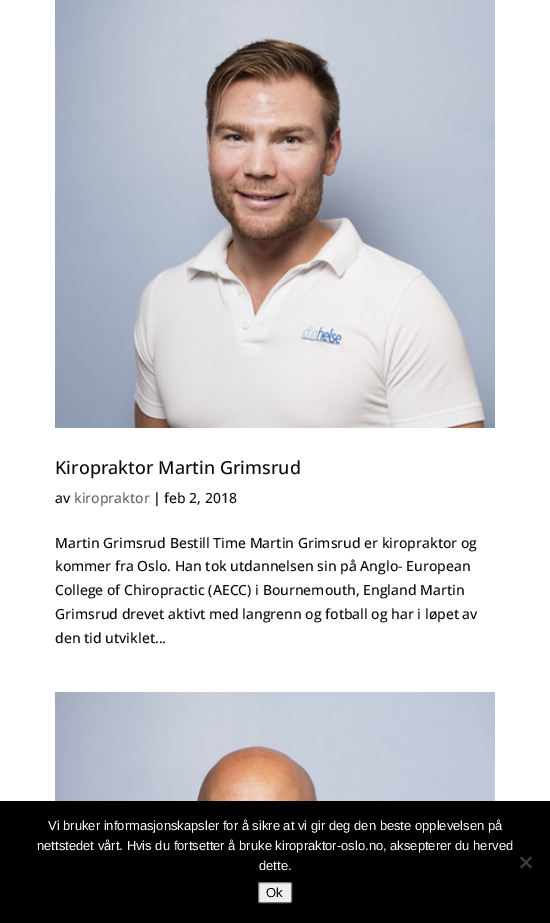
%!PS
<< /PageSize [550 923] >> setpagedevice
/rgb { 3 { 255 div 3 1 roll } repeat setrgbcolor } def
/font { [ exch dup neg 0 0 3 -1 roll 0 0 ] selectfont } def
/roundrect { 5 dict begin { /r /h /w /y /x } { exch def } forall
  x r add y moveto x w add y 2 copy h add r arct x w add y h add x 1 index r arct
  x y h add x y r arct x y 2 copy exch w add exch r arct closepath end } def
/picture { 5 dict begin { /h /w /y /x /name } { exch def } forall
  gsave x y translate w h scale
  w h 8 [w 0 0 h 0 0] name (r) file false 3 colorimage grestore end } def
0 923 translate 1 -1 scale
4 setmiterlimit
255 255 255 rgb
0 0 550 923 rectfill
(img/1.rgb) 55 0 440 428 picture
(img/2.rgb) 55 692 440 109 picture
0 0 0 rgb
0 801 550 122 rectfill
64 64 64 rgb
530.5 856.5 moveto 532 858 lineto 521.5 868.5 lineto 520 867 lineto closepath fill
520 858 moveto 521.5 856.5 lineto 532 867 lineto 530.5 868.5 lineto closepath fill
239 239 239 rgb
258.5 882.5 33 20 1.5 roundrect gsave fill grestore
118 118 118 rgb
stroke
/OpenSans-Medium 18 font
10 10 10 rgb
55 474 moveto (Kiropraktor Martin Grimsrud) show
/OpenSans-Medium 14 font
55 503 moveto (av) show
102 102 102 rgb
74 503 moveto (kiropraktor) show
10 10 10 rgb
[
  [(| feb 2, 2018) 153 503]
  [(Martin Grimsrud Bestill Time Martin Grimsrud er kiropraktor og) 55 548]
  [(kommer fra Oslo. Han tok utdannelsen sin på Anglo- European) 55 571]
  [(College of Chiropractic \(AECC\) i Bournemouth, England Martin) 55 595]
  [(Grimsrud drevet aktivt med langrenn og fotball og har i løpet av) 55 619]
  [(den tid utviklet...) 55 643]
] { aload pop moveto show } forall
/LiberationSans-Regular 13 font
255 255 255 rgb
[
  [(Vi bruker informasjonskapsler for å sikre at vi gir deg den beste opplevelsen på) 48 830]
  [(nettstedet vårt. Hvis du fortsetter å bruke kiropraktor-oslo.no, aksepterer du herved) 37 850]
  [(dette.) 259 870]
] { aload pop moveto show } forall
0 0 0 rgb
266 897 moveto (Ok) show
showpage
